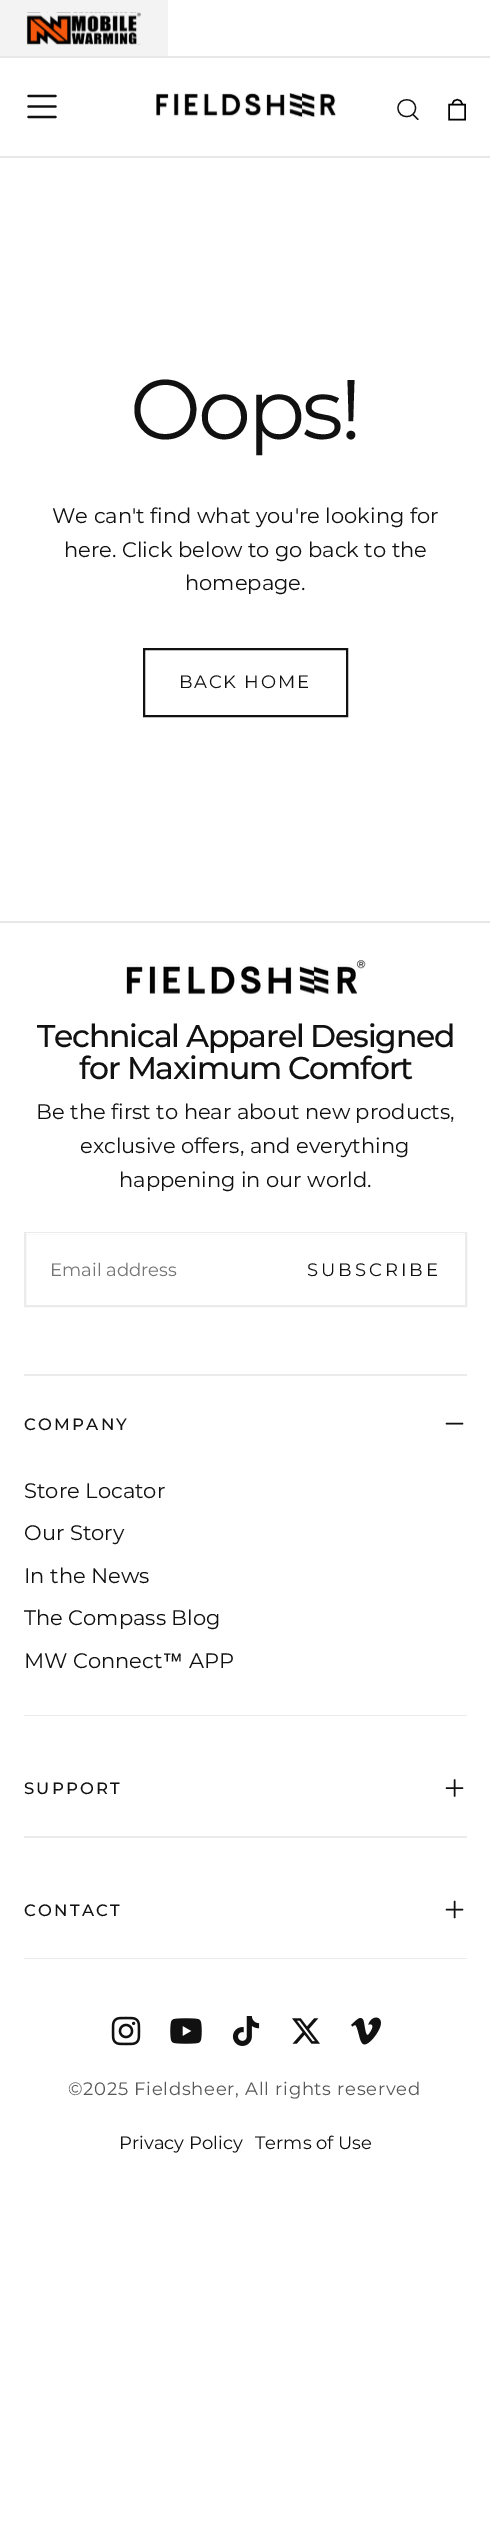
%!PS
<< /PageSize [490 2544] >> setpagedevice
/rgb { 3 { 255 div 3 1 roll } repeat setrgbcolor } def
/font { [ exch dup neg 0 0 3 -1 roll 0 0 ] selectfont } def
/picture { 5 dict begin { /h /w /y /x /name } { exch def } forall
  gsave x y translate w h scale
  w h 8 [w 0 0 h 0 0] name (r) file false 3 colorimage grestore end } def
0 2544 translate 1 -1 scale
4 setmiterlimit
255 255 255 rgb
0 0 490 2544 rectfill
243 243 243 rgb
0 0 168 56 rectfill
(img/1.rgb) 26 12 115 33 picture
231 231 231 rgb
0 56 490 2 rectfill
0 156 490 2 rectfill
17 17 17 rgb
2.2 setlinewidth
1 setlinecap
28.5 106.5 moveto 55.5 106.5 lineto 28.5 96 moveto 55.5 96 lineto 28.5 117 moveto 55.5 117 lineto stroke
(img/2.rgb) 156 93 180 25 picture
1.2 setlinewidth
418 119.5 moveto 413 114.5 lineto 415.5 108 moveto 415.5 119.5 398 119.5 398 108 curveto 398 97 415.5 97 415.5 108 curveto closepath stroke
0 0 0 rgb
1.4 setlinewidth
0 setlinecap
449 104.5 moveto 465 104.5 lineto 465 119.5 lineto 449 119.5 lineto closepath 462 104.5 moveto 462 98 452.5 98 452.5 104.5 curveto stroke
17 17 17 rgb
2 setlinewidth
144 649 203 67 rectstroke
231 231 231 rgb
0 921 490 2 rectfill
(img/3.rgb) 126 960 240 35 picture
235 235 235 rgb
25 1233 441 73 rectstroke
[
  [26 1233 439 1 255 255 255]
  [24 1715 443 1 235 235 235]
  [24 1374 443 2 235 235 235]
] { aload pop rgb rectfill } forall
17 17 17 rgb
1.5 setlinewidth
1 setlinecap
446.5 1423.5 moveto 462.5 1423.5 lineto stroke
235 235 235 rgb
24 1836 443 2 rectfill
17 17 17 rgb
454.5 1780 moveto 454.5 1788 lineto 454.5 1788 moveto 454.5 1796 lineto 454.5 1788 moveto 446.5 1788 lineto 454.5 1788 moveto 462.5 1788 lineto stroke
235 235 235 rgb
24 1958 443 1 rectfill
17 17 17 rgb
454.5 1901.5 moveto 454.5 1909.5 lineto 454.5 1909.5 moveto 454.5 1917.5 lineto 454.5 1909.5 moveto 446.5 1909.5 lineto 454.5 1909.5 moveto 462.5 1909.5 lineto stroke
(img/4.rgb) 111 2016 30 30 picture
(img/5.rgb) 170 2018 32 26 picture
(img/6.rgb) 232 2016 28 30 picture
(img/7.rgb) 292 2018 28 26 picture
(img/8.rgb) 351 2017 30 28 picture
/Montserrat-Regular 84.5 font
130 439 moveto -3 0 (Oops!) ashow
/Montserrat-Regular 21 font
[
  [(We can't find what you're looking for) 52 523]
  [(here. Click below to go back to the) 64 557]
  [(homepage.) 185 590]
] { aload pop moveto show } forall
/Montserrat-Regular 18 font
179 688 moveto 1.75 0 (BACK HOME) ashow
/Montserrat-Medium 31.5 font
37 1047 moveto -1.25 0 (Technical Apparel Designed) ashow
79 1079 moveto -1.25 0 (for Maximum Comfort) ashow
/Montserrat-Regular 21 font
[
  [(Be the first to hear about new products,) 36 1119]
  [(exclusive offers, and everything) 80 1153]
  [(happening in our world.) 119 1187]
] { aload pop moveto show } forall
/Montserrat-Regular 18 font
117 117 117 rgb
50 1276 moveto (Email address) show
17 17 17 rgb
307 1276 moveto 3 0 (SUBSCRIBE) ashow
/Montserrat-Medium 16.5 font
24 1430 moveto 2.25 0 (COMPANY) ashow
/Montserrat-Regular 21 font
[
  [(Store Locator) 24 1498]
  [(Our Story) 24 1540]
  [(In the News) 24 1583]
  [(The Compass Blog) 24 1625]
  [(MW Connect) 24 1668]
] { aload pop moveto show } forall
/LiberationSans-Regular 21 font
162 1668 moveto (™) show
/Montserrat-Regular 21 font
189 1668 moveto (APP) show
/Montserrat-Medium 16.5 font
24 1794 moveto 2.25 0 (SUPPORT) ashow
24 1916 moveto 2.25 0 (CONTACT) ashow
/Montserrat-Regular 18 font
88 88 88 rgb
68 2095 moveto 0.7 0 (©2025 Fieldsheer, All rights reserved) ashow
17 17 17 rgb
119 2149 moveto (Privacy Policy) show
255 2149 moveto (Terms of Use) show
showpage
